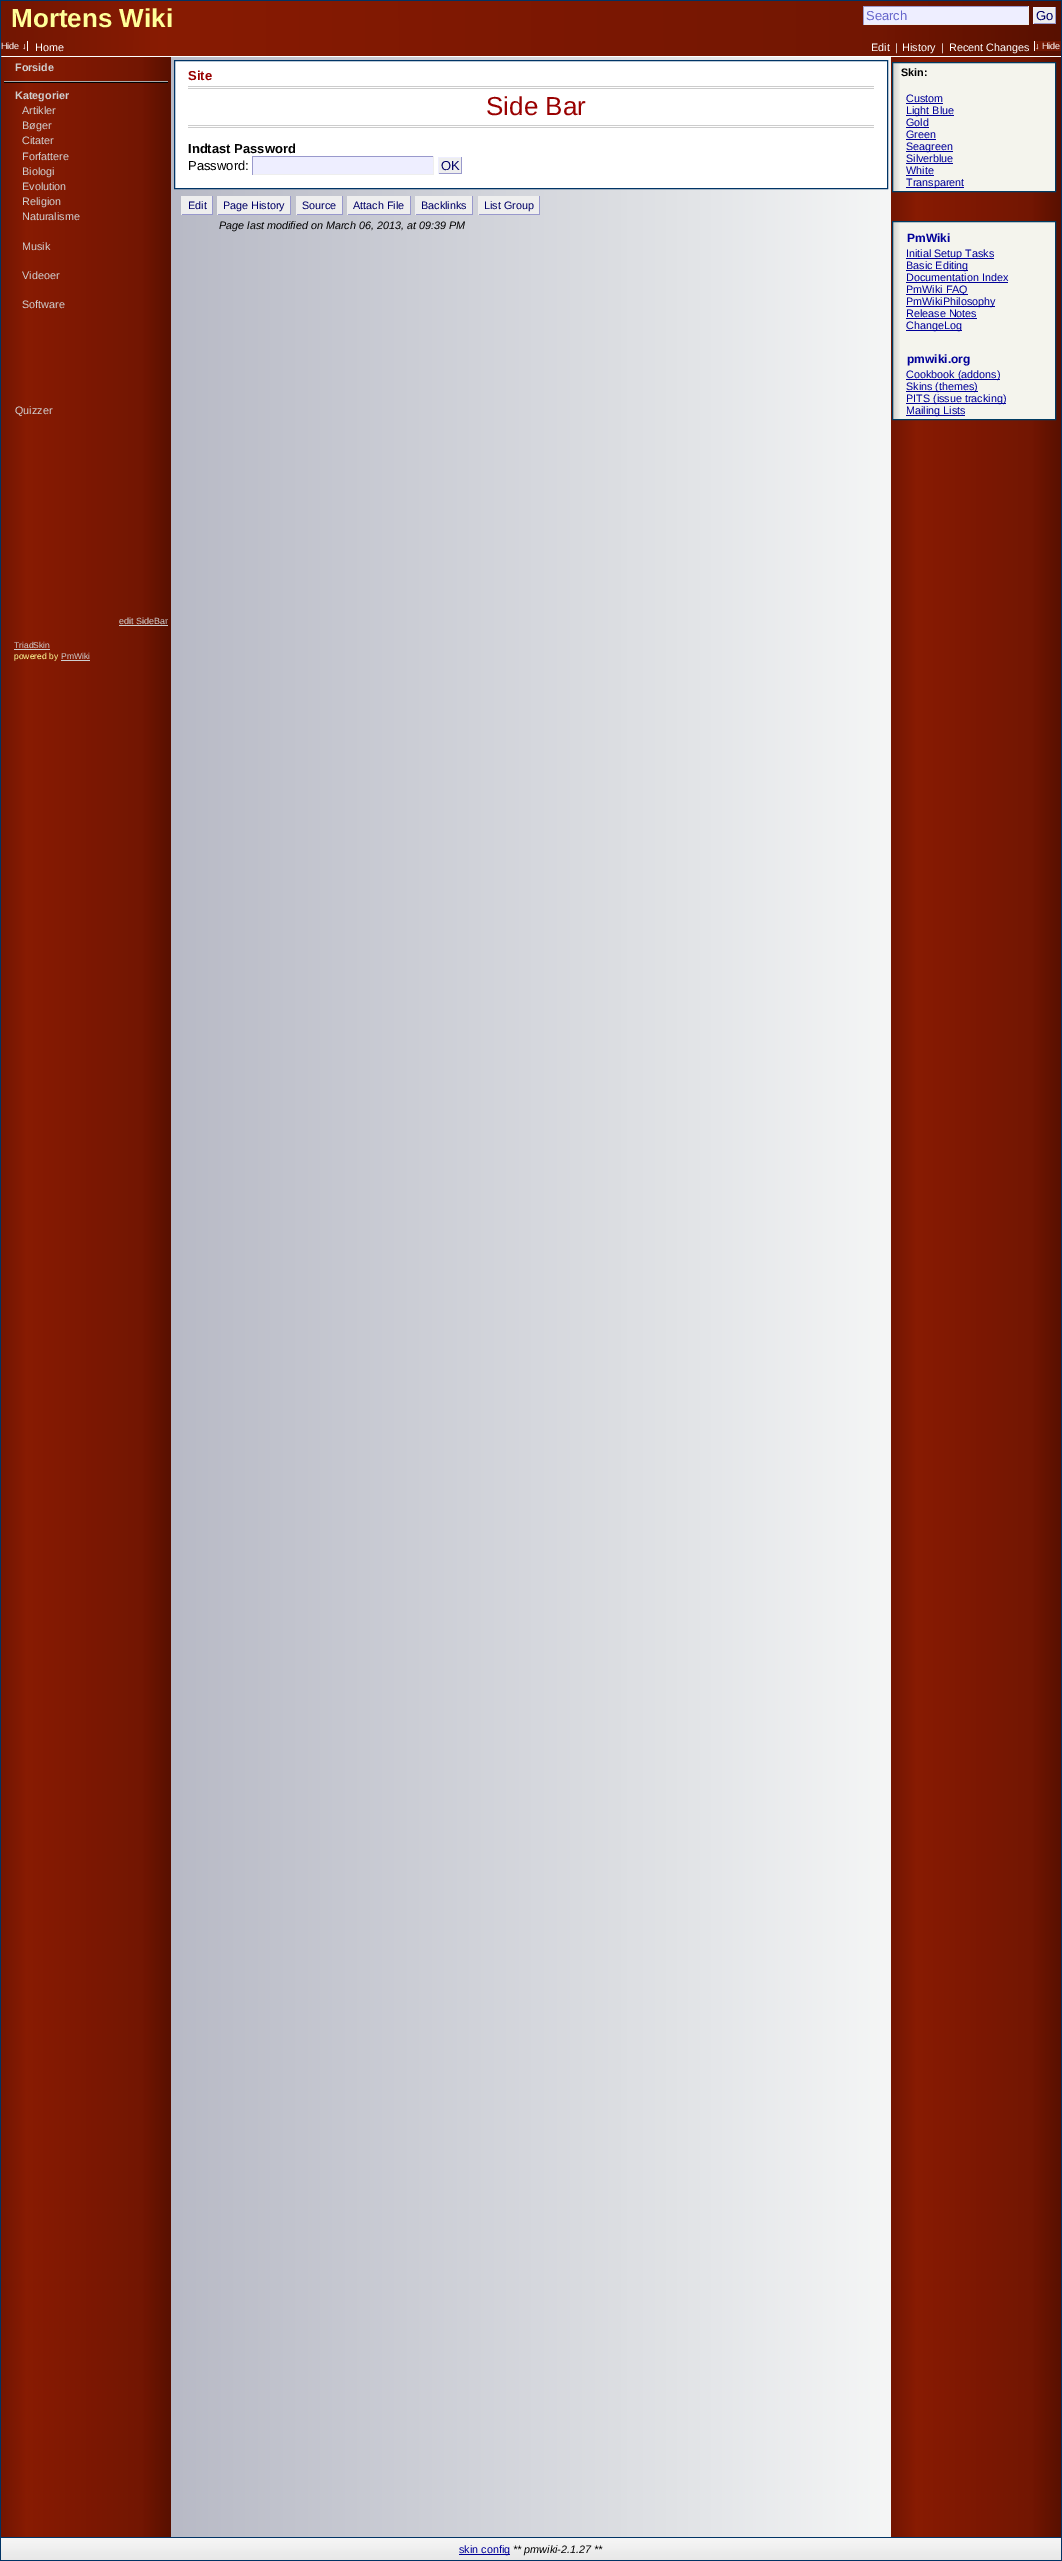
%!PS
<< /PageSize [1062 2561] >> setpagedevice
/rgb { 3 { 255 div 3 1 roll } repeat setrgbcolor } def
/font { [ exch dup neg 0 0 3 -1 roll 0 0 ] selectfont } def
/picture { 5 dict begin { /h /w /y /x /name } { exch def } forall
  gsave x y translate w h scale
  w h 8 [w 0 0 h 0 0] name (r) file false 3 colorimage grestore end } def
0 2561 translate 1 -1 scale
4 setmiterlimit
255 255 255 rgb
0 0 1062 2561 rectfill
0 52 102 rgb
0.5 0.5 1061 2560 rectstroke
gsave 1 1 moveto 1061 1 lineto 1061 40 lineto 1 40 lineto closepath clip newpath
<< /ShadingType 2 /ColorSpace /DeviceRGB /Coords [1 21 1061 20] /Extend [true true] /Function << /FunctionType 3 /Domain [0 1] /Functions [<< /FunctionType 2 /Domain [0 1] /C0 [0.447 0.086 0.008] /C1 [0.533 0.106 0.008] /N 1 >> << /FunctionType 2 /Domain [0 1] /C0 [0.533 0.106 0.008] /C1 [0.447 0.086 0.008] /N 1 >> << /FunctionType 2 /Domain [0 1] /C0 [0.447 0.086 0.008] /C1 [0.345 0.063 0] /N 1 >>] /Bounds [0.15 0.83] /Encode [0 1 0 1 0 1] >> >> shfill grestore
[
  [864 7 164 17 238 238 255]
  [863 6 166 1 153 153 204]
  [1028 6 1 19 238 238 238]
  [863 24 166 1 238 238 238]
  [863 6 1 19 153 153 204]
  [1034 8 21 15 238 238 238]
  [1033 7 23 1 238 238 255]
  [1055 7 1 17 153 153 204]
  [1033 23 23 1 153 153 204]
  [1033 7 1 17 238 238 255]
] { aload pop rgb rectfill } forall
gsave 1 40 moveto 1061 40 lineto 1061 56 lineto 1 56 lineto closepath clip newpath
<< /ShadingType 2 /ColorSpace /DeviceRGB /Coords [1 48 1061 48] /Extend [true true] /Function << /FunctionType 3 /Domain [0 1] /Functions [<< /FunctionType 2 /Domain [0 1] /C0 [0.447 0.086 0.008] /C1 [0.533 0.106 0.008] /N 1 >> << /FunctionType 2 /Domain [0 1] /C0 [0.533 0.106 0.008] /C1 [0.447 0.086 0.008] /N 1 >> << /FunctionType 2 /Domain [0 1] /C0 [0.447 0.086 0.008] /C1 [0.345 0.063 0] /N 1 >>] /Bounds [0.15 0.83] /Encode [0 1 0 1 0 1] >> >> shfill grestore
[
  [19 41 8 10 114 22 2]
  [27 41 1 10 255 255 255]
  [1035 41 26 10 114 22 2]
  [1034 41 1 10 255 255 255]
] { aload pop rgb rectfill } forall
gsave 1 57 moveto 171 57 lineto 171 2537 lineto 1 2537 lineto closepath clip newpath
<< /ShadingType 2 /ColorSpace /DeviceRGB /Coords [1 1297 171 1297] /Extend [true true] /Function << /FunctionType 3 /Domain [0 1] /Functions [<< /FunctionType 2 /Domain [0 1] /C0 [0.447 0.086 0.008] /C1 [0.533 0.106 0.008] /N 1 >> << /FunctionType 2 /Domain [0 1] /C0 [0.533 0.106 0.008] /C1 [0.447 0.086 0.008] /N 1 >> << /FunctionType 2 /Domain [0 1] /C0 [0.447 0.086 0.008] /C1 [0.345 0.063 0] /N 1 >>] /Bounds [0.15 0.83] /Encode [0 1 0 1 0 1] >> >> shfill grestore
[
  [4 82 164 1 0 0 0]
  [4 81 164 1 170 170 170]
  [119 625 49 1 208 208 208]
  [14 649 36 1 208 208 208]
  [61 660 29 1 208 208 208]
] { aload pop rgb rectfill } forall
gsave 171 57 moveto 891 57 lineto 891 2537 lineto 171 2537 lineto closepath clip newpath
<< /ShadingType 2 /ColorSpace /DeviceRGB /Coords [171 1297 891 1297] /Extend [true true] /Function << /FunctionType 3 /Domain [0 1] /Functions [<< /FunctionType 2 /Domain [0 1] /C0 [0.722 0.729 0.776] /C1 [0.867 0.875 0.89] /N 1 >> << /FunctionType 2 /Domain [0 1] /C0 [0.867 0.875 0.89] /C1 [0.961 0.965 0.965] /N 1 >>] /Bounds [0.64] /Encode [0 1 0 1] >> >> shfill grestore
255 255 255 rgb
174.5 60.5 moveto 887.5 60.5 lineto 887.5 188.5 lineto 174.5 188.5 lineto closepath gsave fill grestore
0 52 102 rgb
stroke
[
  [188 86 686 1 204 204 204]
  [188 88 686 1 204 204 204]
  [188 125 686 1 204 204 204]
  [188 127 686 1 204 204 204]
  [253 157 180 17 238 238 255]
  [252 156 182 1 153 153 204]
  [433 156 1 19 238 238 238]
  [252 174 182 1 238 238 238]
  [252 156 1 19 153 153 204]
  [439 158 22 15 238 238 238]
  [438 157 24 1 238 238 255]
  [461 157 1 17 153 153 204]
  [438 173 24 1 153 153 204]
  [438 157 1 17 238 238 255]
  [182 196 30 18 238 238 238]
  [212 196 1 19 153 153 204]
  [181 214 32 1 153 153 204]
  [181 196 1 19 238 238 238]
  [218 196 72 18 238 238 238]
  [290 196 1 19 153 153 204]
  [217 214 74 1 153 153 204]
  [217 196 1 19 238 238 238]
  [297 196 45 18 238 238 238]
  [342 196 1 19 153 153 204]
  [296 214 47 1 153 153 204]
  [296 196 1 19 238 238 238]
  [348 196 62 18 238 238 238]
  [410 196 1 19 153 153 204]
  [347 214 64 1 153 153 204]
  [347 196 1 19 238 238 238]
  [416 196 56 18 238 238 238]
  [472 196 1 19 153 153 204]
  [415 214 58 1 153 153 204]
  [415 196 1 19 238 238 238]
  [479 196 60 18 238 238 238]
  [539 196 1 19 153 153 204]
  [478 214 62 1 153 153 204]
  [478 196 1 19 238 238 238]
] { aload pop rgb rectfill } forall
gsave 891 57 moveto 1061 57 lineto 1061 2537 lineto 891 2537 lineto closepath clip newpath
<< /ShadingType 2 /ColorSpace /DeviceRGB /Coords [891 1297 1061 1297] /Extend [true true] /Function << /FunctionType 3 /Domain [0 1] /Functions [<< /FunctionType 2 /Domain [0 1] /C0 [0.447 0.086 0.008] /C1 [0.533 0.106 0.008] /N 1 >> << /FunctionType 2 /Domain [0 1] /C0 [0.533 0.106 0.008] /C1 [0.447 0.086 0.008] /N 1 >> << /FunctionType 2 /Domain [0 1] /C0 [0.447 0.086 0.008] /C1 [0.345 0.063 0] /N 1 >>] /Bounds [0.15 0.83] /Encode [0 1 0 1 0 1] >> >> shfill grestore
244 244 237 rgb
900 63 155 128 rectfill
(img/1.rgb) 893 63 7 128 picture
0 59 98 rgb
892.5 62.5 163 129 rectstroke
[
  [906 103 37 1 0 0 153]
  [906 115 48 1 0 0 153]
  [906 127 23 1 0 0 153]
  [906 139 30 1 0 0 153]
  [906 151 47 1 0 0 153]
  [906 163 47 1 0 0 153]
  [906 175 28 1 0 0 153]
  [906 187 58 1 0 0 153]
  [900 222 155 197 244 244 237]
] { aload pop rgb rectfill } forall
(img/2.rgb) 893 222 7 197 picture
0 59 98 rgb
892.5 221.5 163 198 rectstroke
[
  [906 258 88 1 0 0 153]
  [906 270 62 1 0 0 153]
  [906 282 102 1 0 0 153]
  [906 294 62 1 0 0 153]
  [906 306 89 1 0 0 153]
  [906 318 71 1 0 0 153]
  [906 330 56 1 0 0 153]
  [906 379 94 1 0 0 153]
  [906 391 72 1 0 0 153]
  [906 403 100 1 0 0 153]
  [906 415 59 1 0 0 153]
] { aload pop rgb rectfill } forall
(img/3.rgb) 1 2538 1060 22 picture
0 52 102 rgb
1 2537 1060 1 rectfill
0 0 153 rgb
459 2554 51 1 rectfill
/LiberationSans-Bold 26 font
255 255 153 rgb
11 27 moveto (Mortens Wiki) show
/LiberationSans-Regular 13 font
102 102 204 rgb
866 20 moveto (Search) show
0 0 102 rgb
1036 20 moveto (Go) show
/LiberationSans-Regular 9 font
255 255 255 rgb
1 49 moveto (Hide ↓) show
/LiberationSans-Regular 10.8 font
[
  [(Home) 35 51]
  [(Edit) 871 51]
  [(|) 895 51]
  [(History) 902 51]
  [(|) 941 51]
  [(Recent Changes) 949 51]
] { aload pop moveto show } forall
/LiberationSans-Regular 9 font
1035 49 moveto (↓ Hide) show
/LiberationSans-Bold 10.8 font
208 208 208 rgb
15 71 moveto (Forside) show
15 99 moveto (Kategorier) show
/LiberationSans-Regular 10.8 font
[
  [(Artikler) 22 114]
  [(Bøger) 22 129]
  [(Citater) 22 144]
  [(Forfattere) 22 160]
  [(Biologi) 22 175]
  [(Evolution) 22 190]
  [(Religion) 22 205]
  [(Naturalisme) 22 220]
  [(Musik) 22 250]
  [(Videoer) 22 279]
  [(Software) 22 308]
  [(Quizzer) 15 414]
] { aload pop moveto show } forall
/LiberationSans-Regular 9 font
119 624 moveto (edit SideBar) show
/LiberationSans-Regular 8.5 font
14 648 moveto (TriadSkin) show
255 255 153 rgb
14 659 moveto (powered by) show
208 208 208 rgb
61 659 moveto (PmWiki) show
/LiberationSans-Bold 13 font
153 0 0 rgb
188 80 moveto (Site) show
/LiberationSans-Regular 26 font
486 115 moveto (Side Bar) show
/LiberationSans-Bold 13 font
0 0 0 rgb
188 153 moveto (Indtast Password) show
/LiberationSans-Regular 13 font
188 170 moveto (Password:) show
0 0 102 rgb
441 170 moveto (OK) show
/LiberationSans-Regular 10.8 font
[
  [(Edit) 188 209]
  [(Page History) 223 209]
  [(Source) 302 209]
  [(Attach File) 353 209]
  [(Backlinks) 421 209]
  [(List Group) 484 209]
] { aload pop moveto show } forall
/LiberationSans-Italic 10.8 font
0 0 0 rgb
219 229 moveto (Page last modified on March 06, 2013, at 09:39 PM) show
/LiberationSans-Bold 10.8 font
901 76 moveto (Skin:) show
/LiberationSans-Regular 10.8 font
0 0 153 rgb
[
  [(Custom) 906 102]
  [(Light Blue) 906 114]
  [(Gold) 906 126]
  [(Green) 906 138]
  [(Seagreen) 906 150]
  [(Silverblue) 906 162]
  [(White) 906 174]
  [(Transparent) 906 186]
] { aload pop moveto show } forall
/LiberationSans-Bold 12 font
907 242 moveto (PmWiki) show
/LiberationSans-Regular 10.8 font
[
  [(Initial Setup Tasks) 906 257]
  [(Basic Editing) 906 269]
  [(Documentation Index) 906 281]
  [(PmWiki FAQ) 906 293]
  [(PmWikiPhilosophy) 906 305]
  [(Release Notes) 906 317]
  [(ChangeLog) 906 329]
] { aload pop moveto show } forall
/LiberationSans-Bold 12 font
907 363 moveto (pmwiki.org) show
/LiberationSans-Regular 10.8 font
[
  [(Cookbook \(addons\)) 906 378]
  [(Skins \(themes\)) 906 390]
  [(PITS \(issue tracking\)) 906 402]
  [(Mailing Lists) 906 414]
  [(skin config) 459 2553]
] { aload pop moveto show } forall
/LiberationSans-Italic 10.8 font
0 0 0 rgb
513 2553 moveto (** pmwiki-2.1.27 **) show
showpage
